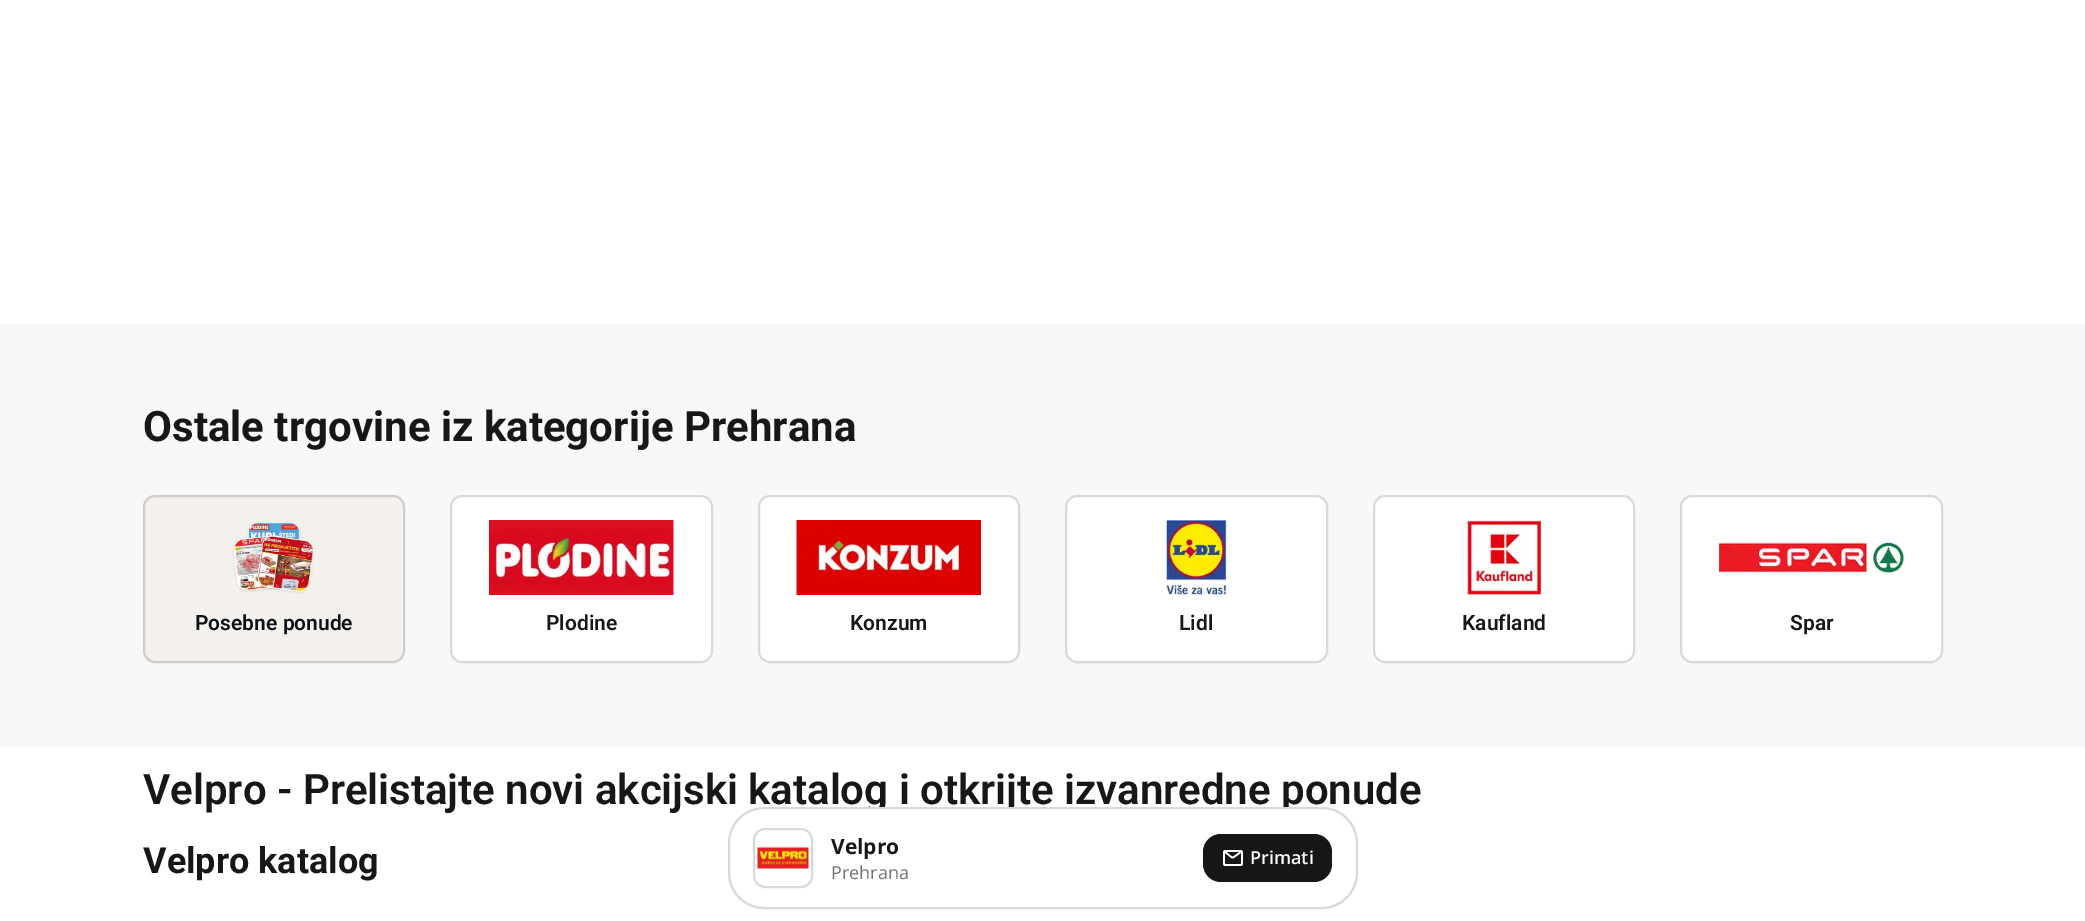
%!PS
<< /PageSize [2085 921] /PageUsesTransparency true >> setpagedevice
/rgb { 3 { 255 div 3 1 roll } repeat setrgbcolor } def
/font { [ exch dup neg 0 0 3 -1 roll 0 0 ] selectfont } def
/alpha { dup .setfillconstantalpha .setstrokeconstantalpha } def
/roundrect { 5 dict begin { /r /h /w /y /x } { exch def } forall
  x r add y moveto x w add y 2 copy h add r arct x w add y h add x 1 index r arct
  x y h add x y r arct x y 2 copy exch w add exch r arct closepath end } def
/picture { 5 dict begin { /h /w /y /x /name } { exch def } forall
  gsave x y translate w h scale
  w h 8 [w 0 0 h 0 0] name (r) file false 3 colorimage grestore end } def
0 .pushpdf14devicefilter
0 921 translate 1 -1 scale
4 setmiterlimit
255 255 255 rgb
0 0 2085 921 rectfill
248 248 248 rgb
0 324 2085 423 rectfill
244 240 235 rgb
143 495 262 168 12 roundrect fill
0.15 alpha
0 0 0 rgb
2 setlinewidth
144 496 260 166 11 roundrect stroke
1 alpha
(img/1.rgb) 232 522 83 72 picture
255 255 255 rgb
450 495 263 168 12 roundrect fill
0.15 alpha
0 0 0 rgb
451 496 261 166 11 roundrect stroke
1 alpha
(img/2.rgb) 489 520 185 75 picture
255 255 255 rgb
758 495 262 168 12 roundrect fill
0.15 alpha
0 0 0 rgb
759 496 260 166 11 roundrect stroke
1 alpha
(img/3.rgb) 796 520 185 75 picture
255 255 255 rgb
1065 495 263 168 12 roundrect fill
0.15 alpha
0 0 0 rgb
1066 496 261 166 11 roundrect stroke
1 alpha
(img/4.rgb) 1163 520 68 75 picture
255 255 255 rgb
1373 495 262 168 12 roundrect fill
0.15 alpha
0 0 0 rgb
1374 496 260 166 11 roundrect stroke
1 alpha
(img/5.rgb) 1465 520 85 75 picture
255 255 255 rgb
1680 495 263 168 12 roundrect fill
0.15 alpha
0 0 0 rgb
1681 496 261 166 11 roundrect stroke
1 alpha
(img/6.rgb) 1719 538 185 37 picture
/Roboto-Bold 42 font
23 23 23 rgb
143 441 moveto (Ostale trgovine iz kategorije Prehrana) show
/Roboto-SemiBold 21 font
10 18 23 rgb
195 630 moveto (Posebne ponude) show
23 23 23 rgb
[
  [(Plodine) 546 630]
  [(Konzum) 850 630]
  [(Lidl) 1179 630]
  [(Kaufland) 1462 630]
  [(Spar) 1790 630]
] { aload pop moveto show } forall
/Roboto-SemiBold 42 font
143 804 moveto (Velpro - Prelistajte novi akcijski katalog i otkrijte izvanredne ponude) show
/Roboto-Bold 36 font
143 873 moveto (Velpro katalog) show
255 255 255 rgb
729 808 628 100 35 roundrect gsave fill grestore
217 217 217 rgb
stroke
754 829 58 58 11 roundrect stroke
(img/7.rgb) 757 847 52 22 picture
/OpenSans-Bold 21 font
23 23 23 rgb
831 854 moveto (Velpro) show
/OpenSans-Regular 18 font
115 115 115 rgb
831 879 moveto (Prehrana) show
23 23 23 rgb
1203 834 129 48 18 roundrect fill
(img/8.rgb) 1223 850 20 16 picture
/OpenSans-SemiBold 18 font
255 255 255 rgb
1250 864 moveto (Primati) show
.poppdf14devicefilter showpage
